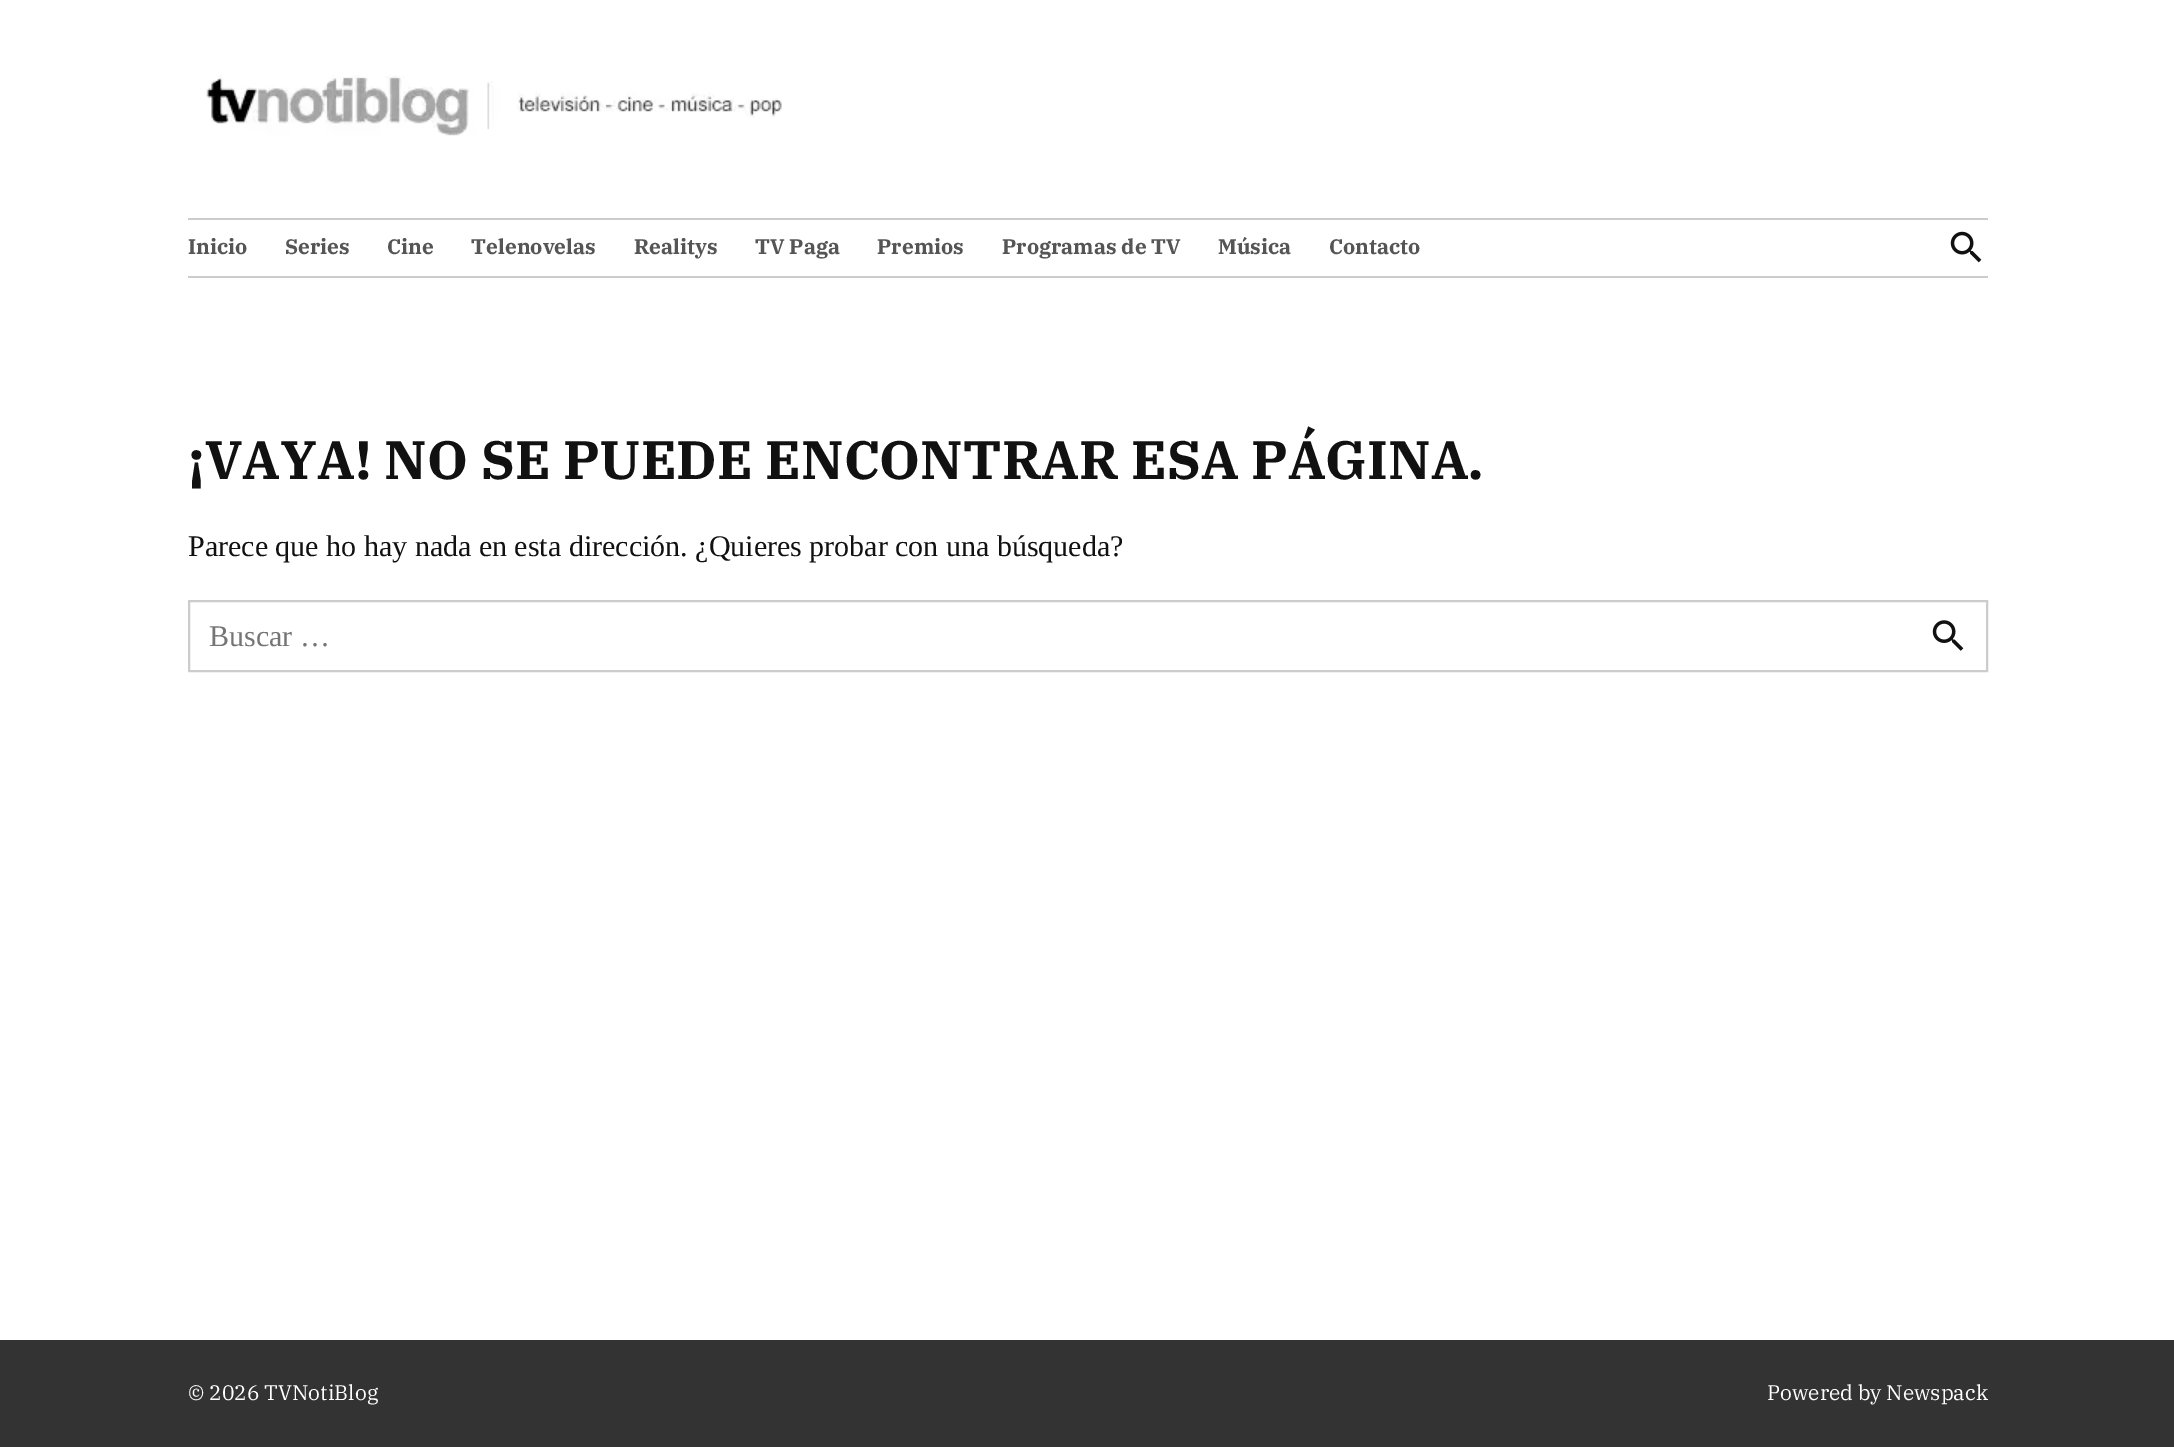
%!PS
<< /PageSize [2174 1447] >> setpagedevice
/rgb { 3 { 255 div 3 1 roll } repeat setrgbcolor } def
/font { [ exch dup neg 0 0 3 -1 roll 0 0 ] selectfont } def
/picture { 5 dict begin { /h /w /y /x /name } { exch def } forall
  gsave x y translate w h scale
  w h 8 [w 0 0 h 0 0] name (r) file false 3 colorimage grestore end } def
0 1447 translate 1 -1 scale
4 setmiterlimit
255 255 255 rgb
0 0 2174 1447 rectfill
(img/1.rgb) 205 75 577 61 picture
204 204 204 rgb
188 218 1800 2 rectfill
188 276 1800 2 rectfill
(img/2.rgb) 1950 231 32 32 picture
2 setlinewidth
189 601 1798 70 rectstroke
(img/3.rgb) 1932 620 32 31 picture
51 51 51 rgb
0 1340 2174 107 rectfill
/IBMPlexSerif-Bold 21 font
85 85 85 rgb
[
  [(Inicio) 188 254]
  [(Series) 285 254]
  [(Cine) 387 254]
  [(Telenovelas) 471 254]
  [(Realitys) 634 254]
  [(TV Paga) 755 254]
  [(Premios) 877 254]
  [(Programas de TV) 1002 254]
  [(Música) 1218 254]
  [(Contacto) 1329 254]
] { aload pop moveto show } forall
/IBMPlexSerif-Bold 54 font
17 17 17 rgb
188 479 moveto (¡VAYA! NO SE PUEDE ENCONTRAR ESA PÁGINA.) show
/LiberationSerif-Regular 30 font
188 556 moveto (Parece que ho hay nada en esta dirección. ¿Quieres probar con una búsqueda?) show
117 117 117 rgb
209 646 moveto (Buscar …) show
/IBMPlexSerif-Regular 21 font
255 255 255 rgb
188 1400 moveto (© 2026 TVNotiBlog) show
1767 1400 moveto (Powered by Newspack) show
showpage
